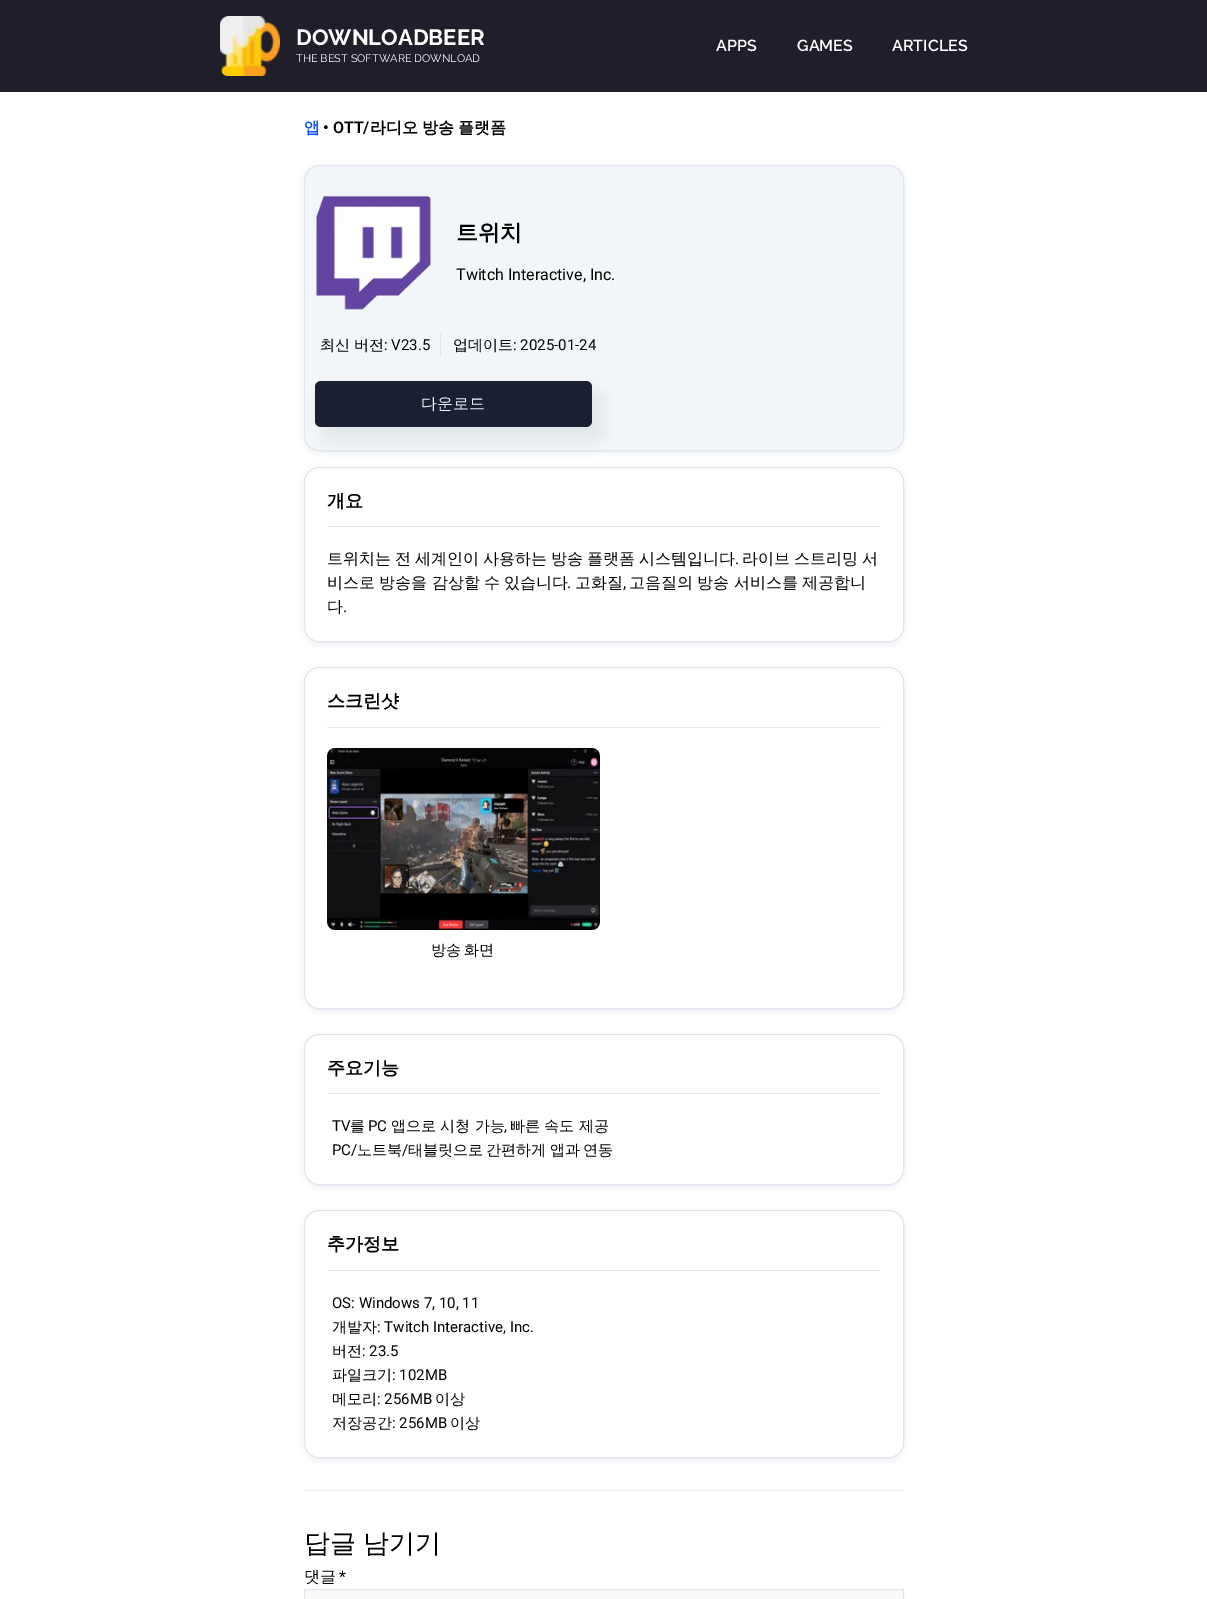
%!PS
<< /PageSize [1207 1599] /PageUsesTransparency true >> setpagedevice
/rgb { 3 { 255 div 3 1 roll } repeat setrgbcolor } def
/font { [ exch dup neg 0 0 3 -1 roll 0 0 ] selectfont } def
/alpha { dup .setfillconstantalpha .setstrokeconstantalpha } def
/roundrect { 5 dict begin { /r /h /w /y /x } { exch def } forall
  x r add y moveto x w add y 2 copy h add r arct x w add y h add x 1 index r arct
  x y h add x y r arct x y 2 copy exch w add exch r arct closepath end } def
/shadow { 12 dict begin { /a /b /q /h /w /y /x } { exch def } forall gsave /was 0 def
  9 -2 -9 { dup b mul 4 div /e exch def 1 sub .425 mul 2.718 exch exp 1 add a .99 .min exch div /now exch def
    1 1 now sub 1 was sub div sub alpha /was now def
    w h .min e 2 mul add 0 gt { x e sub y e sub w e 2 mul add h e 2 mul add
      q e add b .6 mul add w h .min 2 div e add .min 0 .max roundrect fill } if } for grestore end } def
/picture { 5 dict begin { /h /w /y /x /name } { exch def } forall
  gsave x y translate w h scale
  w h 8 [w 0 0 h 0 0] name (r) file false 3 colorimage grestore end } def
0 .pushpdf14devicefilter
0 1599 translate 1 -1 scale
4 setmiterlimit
255 255 255 rgb
0 0 1207 1599 rectfill
31 31 41 rgb
0 0 1207 92 rectfill
(img/1.rgb) 220 16 60 60 picture
15 41 77 rgb
304 167 600 286 15 3 0.08 shadow
243 246 248 rgb
304.5 165.5 599 285 14.5 roundrect gsave fill grestore
224 228 238 rgb
stroke
(img/2.rgb) 316 195 115 115 picture
440 333 1 24 rectfill
15 41 77 rgb
325 393 277 46 6 8 0.08 shadow
26 32 51 rgb
315 381 277 46 6 roundrect fill
15 41 77 rgb
304 469 600 175 15 3 0.08 shadow
255 255 255 rgb
304.5 467.5 599 174 14.5 roundrect gsave fill grestore
224 228 238 rgb
stroke
327 526 554 1 rectfill
15 41 77 rgb
304 669 600 342 15 3 0.08 shadow
255 255 255 rgb
304.5 667.5 599 341 14.5 roundrect gsave fill grestore
224 228 238 rgb
stroke
327 727 554 1 rectfill
(img/3.rgb) 327 748 273 182 picture
15 41 77 rgb
304 1036 600 151 15 3 0.08 shadow
255 255 255 rgb
304.5 1034.5 599 150 14.5 roundrect gsave fill grestore
224 228 238 rgb
stroke
327 1093 554 1 rectfill
15 41 77 rgb
304 1212 600 248 15 3 0.08 shadow
255 255 255 rgb
304.5 1210.5 599 247 14.5 roundrect gsave fill grestore
224 228 238 rgb
stroke
327 1270 554 1 rectfill
238 238 238 rgb
304 1490 600 1 rectfill
250 250 250 rgb
304.5 1589.5 moveto 903.5 1589.5 lineto 903.5 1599.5 lineto 304.5 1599.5 lineto closepath gsave fill grestore
224 228 238 rgb
stroke
/Raleway-Bold 22 font
255 255 255 rgb
296 45 moveto (DOWNLOADBEER) show
/Raleway-Regular 11 font
296 62 moveto (THE BEST SOFTWARE DOWNLOAD) show
/Raleway-SemiBold 16 font
[
  [(APPS) 716 51]
  [(GAMES) 797 51]
  [(ARTICLES) 892 51]
] { aload pop moveto show } forall
/WenQuanYiZenHei-Bold 16 font
19 85 238 rgb
304 133 moveto (앱) show
/Roboto-SemiBold 16 font
0 0 0 rgb
323 133 moveto (• OTT/) show
/WenQuanYiZenHei-Bold 16 font
370 133 moveto -1 0 32 (라디오 방송 플랫폼) widthshow
/WenQuanYiZenHei-Bold 22 font
456 240 moveto (트위치) show
/Roboto-Regular 16 font
456 280 moveto (Twitch Interactive, Inc.) show
/WenQuanYiZenHei-Medium 15 font
320 350 moveto (최신) show
354 350 moveto (버전) show
/Roboto-Regular 15 font
384 350 moveto (: V23.5) show
/WenQuanYiZenHei-Medium 15 font
453 350 moveto (업데이트) show
/Roboto-Regular 15 font
513 350 moveto (: 2025-01-24) show
/WenQuanYiZenHei-Medium 16 font
240 242 250 rgb
421 409 moveto (다운로드) show
/WenQuanYiZenHei-Bold 18 font
0 0 0 rgb
327 507 moveto (개요) show
/WenQuanYiZenHei-Medium 16 font
327 564 moveto -0.75 0 32 (트위치는 전 세계인이 사용하는 방송 플랫폼 시스템입니다) widthshow
/Roboto-Regular 16 font
735 564 moveto (.) show
/WenQuanYiZenHei-Medium 16 font
742 564 moveto -0.75 0 32 (라이브 스트리밍 서) widthshow
327 588 moveto -0.5 0 32 (비스로 방송을 감상할 수 있습니다) widthshow
/Roboto-Regular 16 font
567 588 moveto (.) show
/WenQuanYiZenHei-Medium 16 font
575 588 moveto (고화질) show
/Roboto-Regular 16 font
623 588 moveto (,) show
/WenQuanYiZenHei-Medium 16 font
629 588 moveto -0.5 0 32 (고음질의 방송 서비스를 제공합니) widthshow
327 612 moveto (다) show
/Roboto-Regular 16 font
343 612 moveto (.) show
/WenQuanYiZenHei-Bold 18 font
327 707 moveto (스크린샷) show
/WenQuanYiZenHei-Medium 15 font
431 955 moveto -1 0 32 (방송 화면) widthshow
/WenQuanYiZenHei-Bold 18 font
327 1074 moveto (주요기능) show
/Roboto-Regular 15 font
332 1131 moveto (TV) show
/WenQuanYiZenHei-Medium 15 font
350 1131 moveto (를) show
/Roboto-Regular 15 font
368 1131 moveto (PC) show
/WenQuanYiZenHei-Medium 15 font
391 1131 moveto (앱으로 시청 가능) show
/Roboto-Regular 15 font
504 1131 moveto (,) show
/WenQuanYiZenHei-Medium 15 font
510 1131 moveto (빠른 속도 제공) show
/Roboto-Regular 15 font
332 1155 moveto (PC/) show
/WenQuanYiZenHei-Medium 15 font
357 1155 moveto (노트북) show
/Roboto-Regular 15 font
402 1155 moveto (/) show
/WenQuanYiZenHei-Medium 15 font
408 1155 moveto -1 0 32 (태블릿으로 간편하게 앱과 연동) widthshow
/WenQuanYiZenHei-Bold 18 font
327 1250 moveto (추가정보) show
/Roboto-Regular 15 font
332 1308 moveto (OS: Windows 7, 10, 11) show
/WenQuanYiZenHei-Medium 15 font
332 1332 moveto (개발자) show
/Roboto-Regular 15 font
377 1332 moveto (: Twitch Interactive, Inc.) show
/WenQuanYiZenHei-Medium 15 font
332 1356 moveto (버전) show
/Roboto-Regular 15 font
362 1356 moveto (: 23.5) show
/WenQuanYiZenHei-Medium 15 font
332 1380 moveto (파일크기) show
/Roboto-Regular 15 font
392 1380 moveto (: 102MB) show
/WenQuanYiZenHei-Medium 15 font
332 1404 moveto (메모리) show
/Roboto-Regular 15 font
377 1404 moveto (: 256MB) show
/WenQuanYiZenHei-Medium 15 font
435 1404 moveto (이상) show
332 1428 moveto (저장공간) show
/Roboto-Regular 15 font
392 1428 moveto (: 256MB) show
/WenQuanYiZenHei-Medium 15 font
450 1428 moveto (이상) show
/WenQuanYiZenHei-Medium 26 font
304 1552 moveto -1 0 32 (답글 남기기) widthshow
/WenQuanYiZenHei-Medium 16 font
304 1582 moveto (댓글) show
/Roboto-Regular 16 font
339 1582 moveto (*) show
.poppdf14devicefilter showpage
